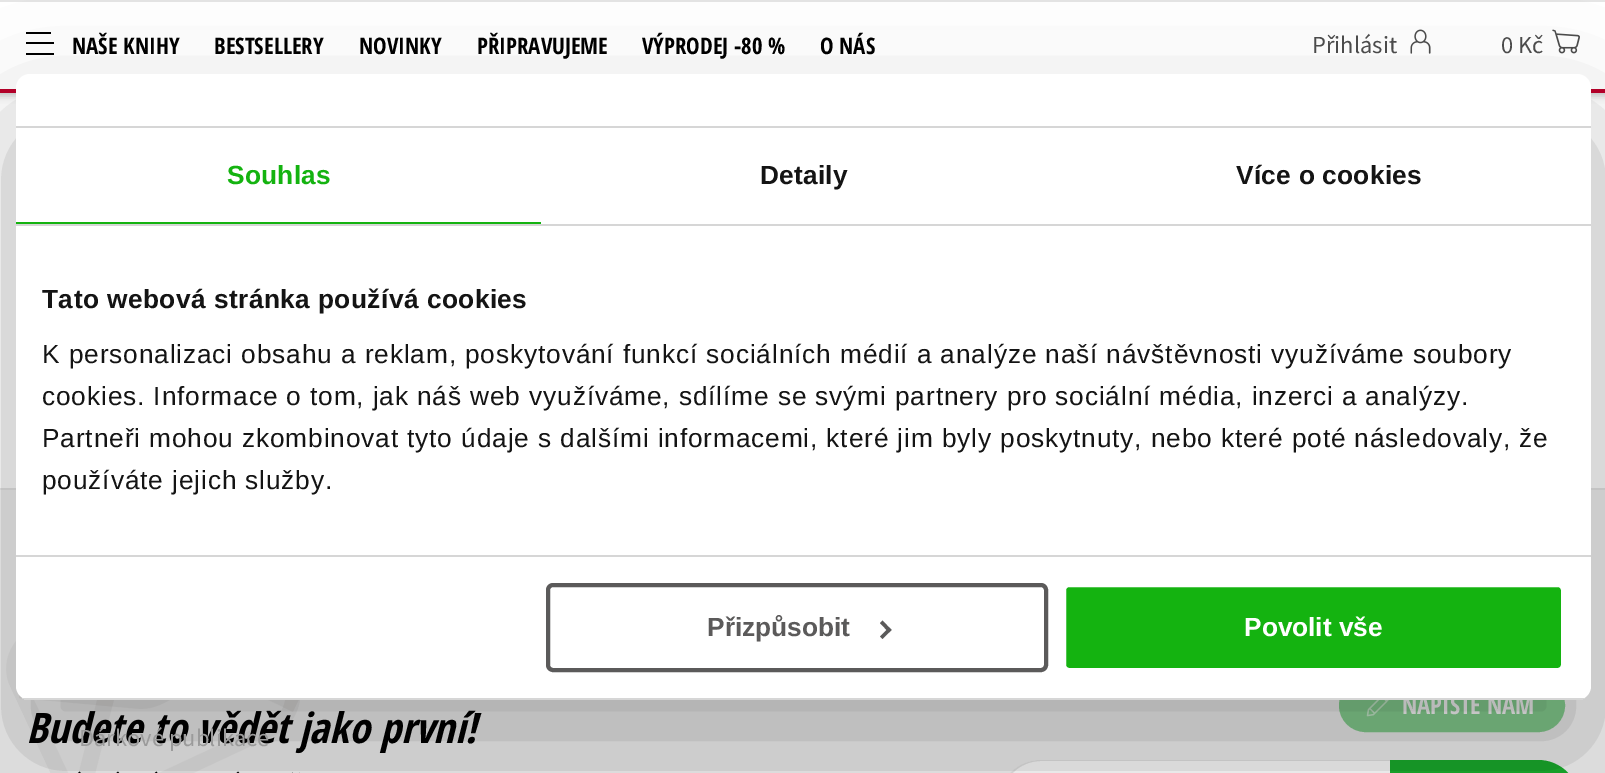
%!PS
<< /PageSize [1605 773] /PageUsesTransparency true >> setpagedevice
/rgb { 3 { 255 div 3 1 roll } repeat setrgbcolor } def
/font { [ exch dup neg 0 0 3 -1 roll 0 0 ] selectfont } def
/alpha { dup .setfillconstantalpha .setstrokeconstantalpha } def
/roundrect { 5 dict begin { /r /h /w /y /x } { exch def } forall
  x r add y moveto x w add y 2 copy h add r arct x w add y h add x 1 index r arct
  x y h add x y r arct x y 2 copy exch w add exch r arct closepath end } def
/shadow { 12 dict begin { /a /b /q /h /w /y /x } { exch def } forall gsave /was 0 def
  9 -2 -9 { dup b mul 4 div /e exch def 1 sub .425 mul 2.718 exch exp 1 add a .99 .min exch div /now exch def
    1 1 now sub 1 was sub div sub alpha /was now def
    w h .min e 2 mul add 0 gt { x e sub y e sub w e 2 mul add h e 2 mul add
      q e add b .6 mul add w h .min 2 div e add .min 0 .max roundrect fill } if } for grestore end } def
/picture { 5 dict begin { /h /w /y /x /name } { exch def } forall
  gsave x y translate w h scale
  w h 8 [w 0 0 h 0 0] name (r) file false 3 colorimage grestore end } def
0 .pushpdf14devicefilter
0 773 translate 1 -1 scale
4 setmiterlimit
255 255 255 rgb
0 0 1605 773 rectfill
0 0 0 rgb
-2 0 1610 96 0 3.5 0.2 shadow
[
  [0 2 1605 87 255 255 255]
  [0 0 1605 2 229 229 229]
  [0 89 1605 4 185 1 43]
  [26 42 28 2 0 0 0]
  [26 32 25 2 0 0 0]
  [26 53 28 2 0 0 0]
] { aload pop rgb rectfill } forall
(img/1.rgb) 1410 29 21 25 picture
(img/2.rgb) 1552 29 28 25 picture
229 229 229 rgb
0 488 1605 2 rectfill
242 242 242 rgb
0 490 1605 283 rectfill
134 208 144 rgb
1340 680 224 51 25.5 roundrect gsave fill grestore
2 setlinewidth
stroke
(img/3.rgb) 1366 700 23 17 picture
255 255 255 rgb
1041 760 moveto 1390 760 lineto 1390 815 lineto 1041 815 lineto 1018 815 999 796 999 773 curveto 999 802 lineto 999 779 1018 760 1041 760 curveto closepath fill
229 229 229 rgb
1041 760 moveto 1390 760 lineto 1390 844 lineto 1041 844 lineto 1018 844 999 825 999 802 curveto 999 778 1018 760 1041 760 curveto closepath 1041 761 moveto 1390 761 lineto 1390 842 lineto 1041 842 lineto 1019 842 1001 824 1001 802 curveto 1001 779 1019 761 1041 761 curveto closepath eofill
26 174 45 rgb
1390 760 moveto 1538 760 lineto 1561 760 1580 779 1580 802 curveto 1580 773 lineto 1580 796 1561 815 1538 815 curveto 1390 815 lineto closepath fill
/OpenSansCondensed-Bold 22.75 font
0 0 0 rgb
[
  [(NAŠE KNIHY) 72 54]
  [(BESTSELLERY) 214 54]
  [(NOVINKY) 359 54]
  [(PŘIPRAVUJEME) 477 54]
  [(VÝPRODEJ -80 %) 642 54]
  [(O NÁS) 820 54]
] { aload pop moveto show } forall
/SourceSansPro-Regular 24.5 font
77 77 77 rgb
1312 53 moveto (Přihlásit) show
1501 53 moveto (0 Kč) show
/OpenSansCondensed-Bold 24.5 font
249 249 249 rgb
1402 714 moveto (NAPIŠTE NÁM) show
/OpenSansCondensed-BoldItalic 42 font
0 0 0 rgb
26 743 moveto (Budete to vědět jako první!) show
(img/4.rgb) 6 641 294 132 picture
16 130 1575 626 14 59.5 0.3 shadow
255 255 255 rgb
16 74 1575 626 14 roundrect fill
91 90 90 rgb
4 setlinewidth
548 585 498 85 5 roundrect stroke
882.5 620.5 moveto 891.5 630 lineto 889 632.5 lineto 880 623 lineto closepath fill
889 627.5 moveto 891.5 630 lineto 882.5 639 lineto 880 636.5 lineto closepath fill
20 179 16 rgb
1064 585 499 85 5 roundrect gsave fill grestore
255 255 255 rgb
stroke
/LiberationSans-Bold 26.25 font
1244 636 moveto (Povolit vše) show
91 90 90 rgb
707 636 moveto (Přizpůsobit) show
gsave
16 74 1575 626 14 roundrect clip newpath
214 214 214 rgb
16 698 1575 2 rectfill
grestore
/LiberationSans-Regular 26.25 font
20 20 20 rgb
42 489 moveto 0.88 0 (používáte jejich služby.) ashow
42 447 moveto 0.88 0 (Partneři mohou zkombinovat tyto údaje s dalšími informacemi, které jim byly poskytnuty, nebo které poté následovaly, že) ashow
42 405 moveto 0.88 0 (cookies. Informace o tom, jak náš web využíváme, sdílíme se svými partnery pro sociální média, inzerci a analýzy.) ashow
42 363 moveto 0.88 0 (K personalizaci obsahu a reklam, poskytování funkcí sociálních médií a analýze naší návštěvnosti využíváme soubory) ashow
/LiberationSans-Bold 26.25 font
42 308 moveto 0.45 0 (Tato webová stránka používá cookies) ashow
214 214 214 rgb
16 555 1575 2 rectfill
20 20 20 rgb
1236 184 moveto 0.25 0 (Více o cookies) ashow
760 184 moveto 0.25 0 (Detaily) ashow
20 179 16 rgb
227 184 moveto 0.25 0 (Souhlas) ashow
[
  [16 222 525 2 20 179 16]
  [16 224 1575 2 214 214 214]
  [16 126 1575 2 214 214 214]
] { aload pop rgb rectfill } forall
/SourceSansPro-Regular 24.5 font
155 155 155 rgb
79 746 moveto (Dárkové publikace) show
.poppdf14devicefilter showpage
